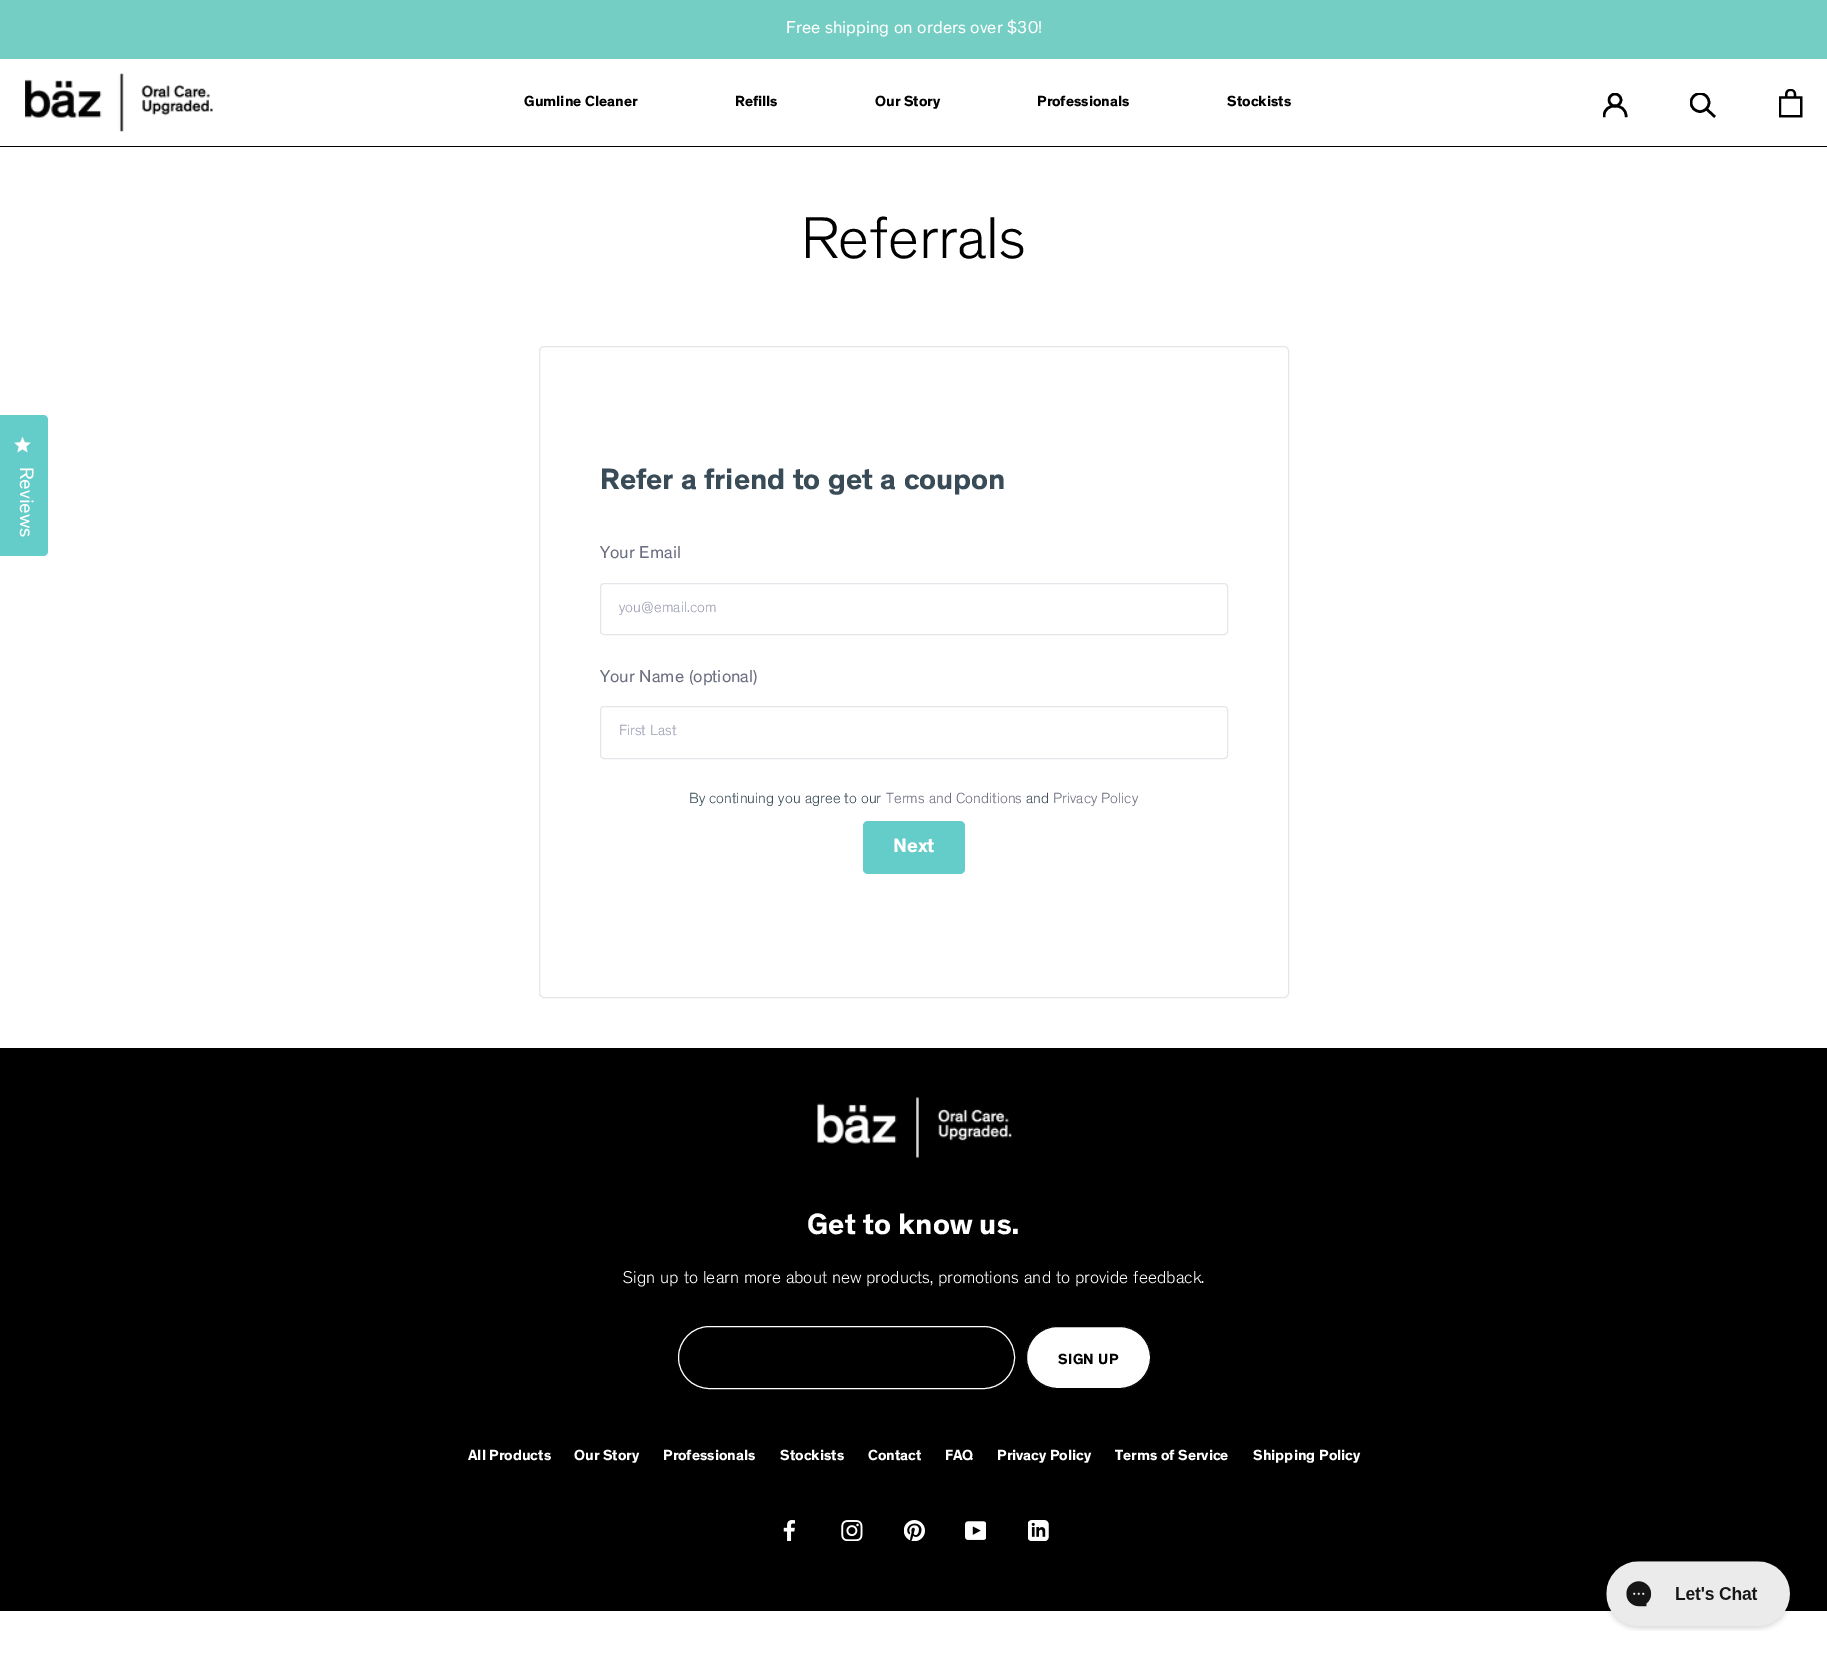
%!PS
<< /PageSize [1827 1660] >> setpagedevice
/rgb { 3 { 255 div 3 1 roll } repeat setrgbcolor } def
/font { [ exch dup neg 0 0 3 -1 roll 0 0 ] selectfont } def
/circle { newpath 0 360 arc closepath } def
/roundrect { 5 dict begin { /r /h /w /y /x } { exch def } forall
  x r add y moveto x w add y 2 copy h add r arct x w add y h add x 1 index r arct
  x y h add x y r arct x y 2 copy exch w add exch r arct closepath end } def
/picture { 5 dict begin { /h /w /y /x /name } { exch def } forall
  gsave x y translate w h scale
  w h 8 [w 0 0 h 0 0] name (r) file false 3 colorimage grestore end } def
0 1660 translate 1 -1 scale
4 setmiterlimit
255 255 255 rgb
0 0 1827 1660 rectfill
100 204 201 rgb
-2 415 moveto 43 415 lineto 46 415 48 417 48 420 curveto 48 551 lineto 48 554 46 556 43 556 curveto -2 556 lineto closepath fill
(img/1.rgb) 14 436 17 17 picture
117 206 196 rgb
0 0 1827 59 rectfill
0 0 0 rgb
0 146 1827 1 rectfill
(img/2.rgb) 25 73 188 59 picture
gsave
1603 93 25 25 rectclip
2.5 setlinewidth
2 setlinecap
1604 116 moveto 1604 102.5 1626 102.5 1626 116 curveto stroke
0 setlinecap
1615 100 6 circle stroke
grestore
2.5 setlinewidth
2 setlinecap
1714 116 moveto 1706.5 109 lineto stroke
gsave
1690 93 26 26 rectclip
0 setlinecap
1700 102.5 9 circle stroke
grestore
(img/3.rgb) 1779 89 24 29 picture
229 229 236 rgb
1 setlinewidth
0 setlinecap
539.5 346.5 749 651 4.5 roundrect stroke
229 229 235 rgb
600.5 583.5 627 51 3.5 roundrect stroke
600.5 706.5 627 52 3.5 roundrect stroke
100 204 201 rgb
863 821 102 53 5 roundrect fill
0 0 0 rgb
0 1048 1827 563 rectfill
(img/4.rgb) 817 1097 195 61 picture
255 255 255 rgb
678.5 1326.5 336 62 31 roundrect stroke
1026.5 1326.5 124 62 31 roundrect gsave fill grestore
0 0 0 rgb
stroke
(img/5.rgb) 783 1520 12 21 picture
(img/6.rgb) 841 1520 22 21 picture
(img/7.rgb) 904 1520 21 21 picture
(img/8.rgb) 965 1521 21 19 picture
(img/9.rgb) 1028 1520 21 21 picture
(img/10.rgb) 1606 1561 184 70 picture
/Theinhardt-Regular 20 font
255 255 255 rgb
gsave 20 467 translate 90.1 rotate 0 0 moveto (Reviews) show grestore
/Theinhardt-Regular 17.5 font
786 33 moveto (Free shipping on orders over $30!) show
/Theinhardt-Bold 15 font
0 0 0 rgb
[
  [(Gumline Cleaner) 524 106]
  [(Refills) 735 106]
  [(Our Story) 875 106]
  [(Professionals) 1037 106]
  [(Stockists) 1227 106]
] { aload pop moveto show } forall
/Theinhardt-Light 60 font
801 258 moveto (Referrals) show
/Theinhardt-Bold 30 font
56 75 87 rgb
600 489 moveto (Refer a friend to get a coupon) show
/Theinhardt-Regular 17.5 font
107 109 128 rgb
600 558 moveto (Your Email) show
/Theinhardt-Light 15 font
154 157 177 rgb
619 612 moveto (you@email.com) show
/Theinhardt-Regular 17.5 font
107 109 128 rgb
600 682 moveto (Your Name \(optional\)) show
/Theinhardt-Light 15 font
154 157 177 rgb
619 735 moveto (First Last) show
56 75 87 rgb
689 803 moveto (By continuing you agree to our) show
107 109 128 rgb
886 803 moveto (Terms and Conditions) show
56 75 87 rgb
1026 803 moveto (and) show
107 109 128 rgb
1053 803 moveto (Privacy Policy) show
/Theinhardt-Bold 20 font
255 255 255 rgb
893 852 moveto (Next) show
/Theinhardt-Bold 30 font
807 1234 moveto (Get to know us.) show
/Theinhardt-Light 17.5 font
623 1283 moveto (Sign up to learn more about new products, promotions and to provide feedback.) show
/Theinhardt-Bold 15 font
0 0 0 rgb
1058 1364 moveto 0.25 0 (SIGN UP) ashow
255 255 255 rgb
[
  [(All Products) 468 1460]
  [(Our Story) 574 1460]
  [(Professionals) 663 1460]
  [(Stockists) 780 1460]
  [(Contact) 868 1460]
  [(FAQ) 945 1460]
  [(Privacy Policy) 997 1460]
  [(Terms of Service) 1115 1460]
  [(Shipping Policy) 1253 1460]
] { aload pop moveto show } forall
showpage
